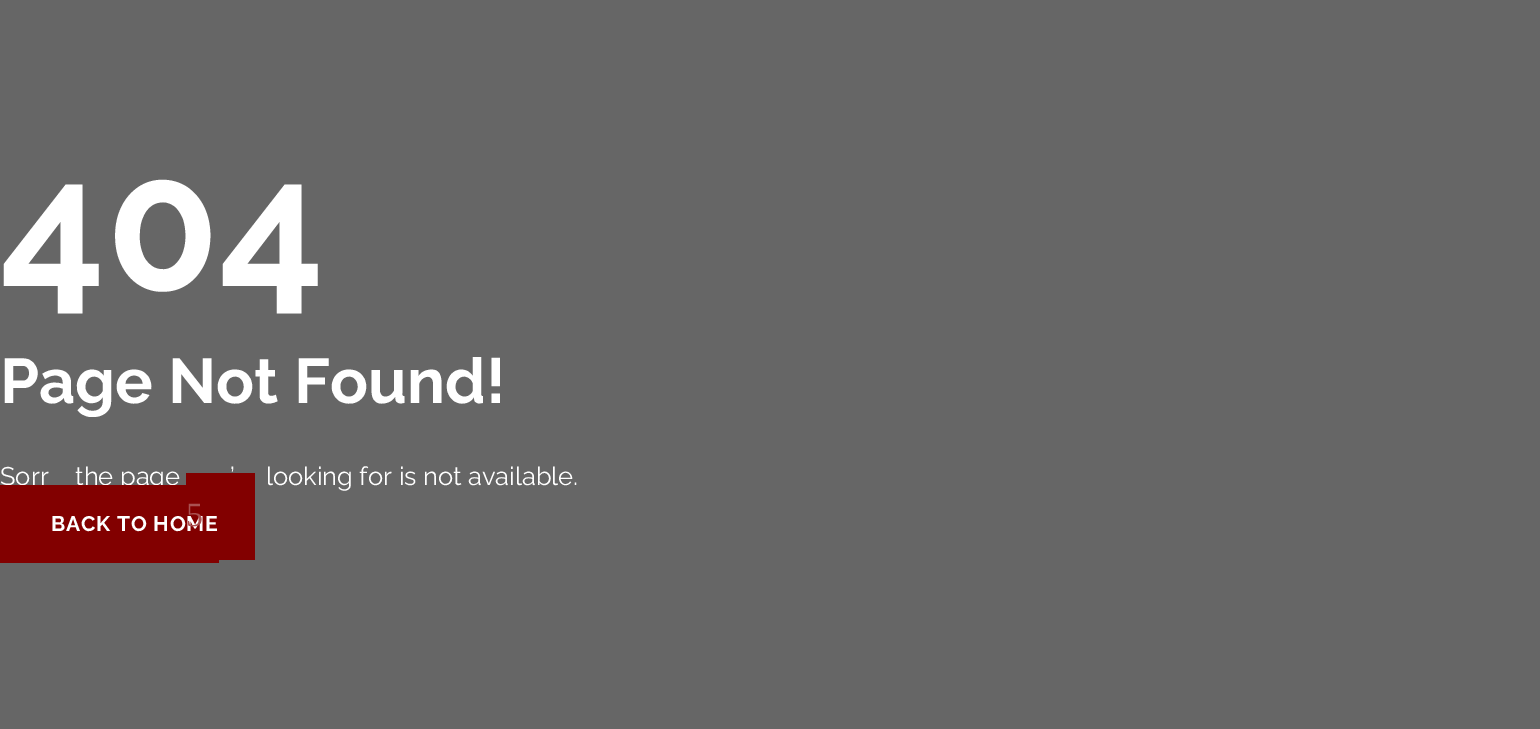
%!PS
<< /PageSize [1540 729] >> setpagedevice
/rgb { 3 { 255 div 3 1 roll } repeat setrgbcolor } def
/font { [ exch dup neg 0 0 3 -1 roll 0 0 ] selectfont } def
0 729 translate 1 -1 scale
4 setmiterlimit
102 102 102 rgb
0 0 1540 729 rectfill
/Raleway-Bold 185 font
255 255 255 rgb
0 290 moveto (404) show
/Raleway-Bold 63 font
0 403 moveto (Page Not Found!) show
/Raleway-Regular 25.5 font
[
  [(Sorr) 0 485]
  [(the page) 75 485]
  [(’) 230 485]
  [(looking for is not available.) 266 485]
] { aload pop moveto show } forall
130 0 0 rgb
0 485 219 78 rectfill
186 473 69 87 rectfill
/Raleway-Bold 21 font
255 255 255 rgb
51 531 moveto 0.8 0 (BACK TO HOME) ashow
/LiberationSerif-Regular 34 font
170 81 81 rgb
186 526 moveto 0.8 0 (5) ashow
showpage
